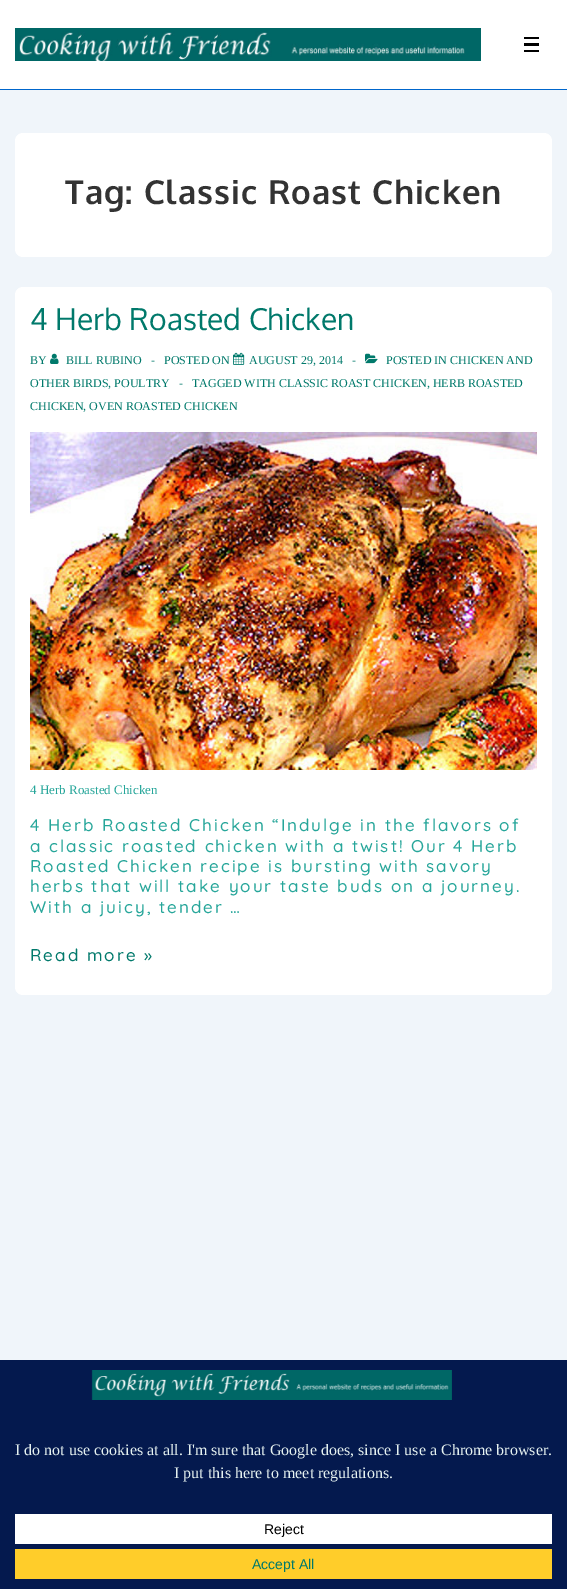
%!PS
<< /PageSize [567 1589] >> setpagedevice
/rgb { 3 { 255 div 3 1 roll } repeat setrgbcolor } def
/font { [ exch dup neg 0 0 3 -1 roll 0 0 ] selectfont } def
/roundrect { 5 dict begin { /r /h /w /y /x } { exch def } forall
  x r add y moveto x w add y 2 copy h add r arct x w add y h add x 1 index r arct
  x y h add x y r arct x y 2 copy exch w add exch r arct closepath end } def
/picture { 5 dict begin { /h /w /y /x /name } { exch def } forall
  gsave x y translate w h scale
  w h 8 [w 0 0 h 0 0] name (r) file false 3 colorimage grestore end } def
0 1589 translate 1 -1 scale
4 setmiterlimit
240 245 250 rgb
0 0 567 1589 rectfill
255 255 255 rgb
0 0 567 89 rectfill
0 102 204 rgb
0 89 567 1 rectfill
(img/1.rgb) 15 28 466 33 picture
[
  [524 37 15 2 0 0 0]
  [524 43 15 3 0 0 0]
  [524 50 15 2 0 0 0]
] { aload pop rgb rectfill } forall
255 255 255 rgb
15 133 537 124 8 roundrect fill
15 287 537 708 8 roundrect fill
(img/2.rgb) 50 353 9 11 picture
(img/3.rgb) 233 352 12 13 picture
(img/4.rgb) 365 353 13 11 picture
(img/5.rgb) 30 432 507 338 picture
4 25 78 rgb
0 1360 567 229 rectfill
(img/6.rgb) 91 1370 361 30 picture
255 255 255 rgb
15 1514 537 30 rectfill
255 205 42 rgb
15 1549 537 30 rectfill
/Oxygen-Bold 33 font
51 51 51 rgb
65 204 moveto 1 0 (Tag: Classic Roast Chicken) ashow
/Oxygen-Regular 30 font
0 121 107 rgb
30 330 moveto (4 Herb Roasted Chicken) show
/LiberationSerif-Regular 12 font
[
  [(BY) 30 364]
  [(BILL RUBINO) 66 364]
  [(-) 151 364]
  [(POSTED ON) 164 364]
  [(AUGUST 29, 2014) 249 364]
  [(-) 352 364]
  [(POSTED IN CHICKEN AND) 386 364]
  [(OTHER BIRDS, POULTRY) 30 387]
  [(-) 179 387]
  [(TAGGED WITH CLASSIC ROAST CHICKEN, HERB ROASTED) 192 387]
  [(CHICKEN, OVEN ROASTED CHICKEN) 30 410]
] { aload pop moveto show } forall
/LiberationSerif-Regular 13 font
38 166 154 rgb
30 794 moveto (4 Herb Roasted Chicken) show
/Quicksand-Light 17 font
30 831 moveto 2 0 (4 Herb Roasted Chicken “Indulge in the flavors of) ashow
30 852 moveto 2 0 (a classic roasted chicken with a twist! Our 4 Herb) ashow
30 872 moveto 2 0 (Roasted Chicken recipe is bursting with savory) ashow
30 892 moveto 2 0 (herbs that will take your taste buds on a journey.) ashow
30 913 moveto 2 0 (With a juicy, tender …) ashow
0 121 107 rgb
30 961 moveto 2 0 (Read more ») ashow
/LiberationSerif-Regular 16 font
229 241 240 rgb
15 1455 moveto (I do not use cookies at all. I'm sure that Google does, since I use a Chrome browser.) show
174 1478 moveto (I put this here to meet regulations.) show
/LiberationSans-Regular 14 font
0 0 0 rgb
264 1534 moveto (Reject) show
0 121 107 rgb
252 1569 moveto (Accept All) show
showpage
